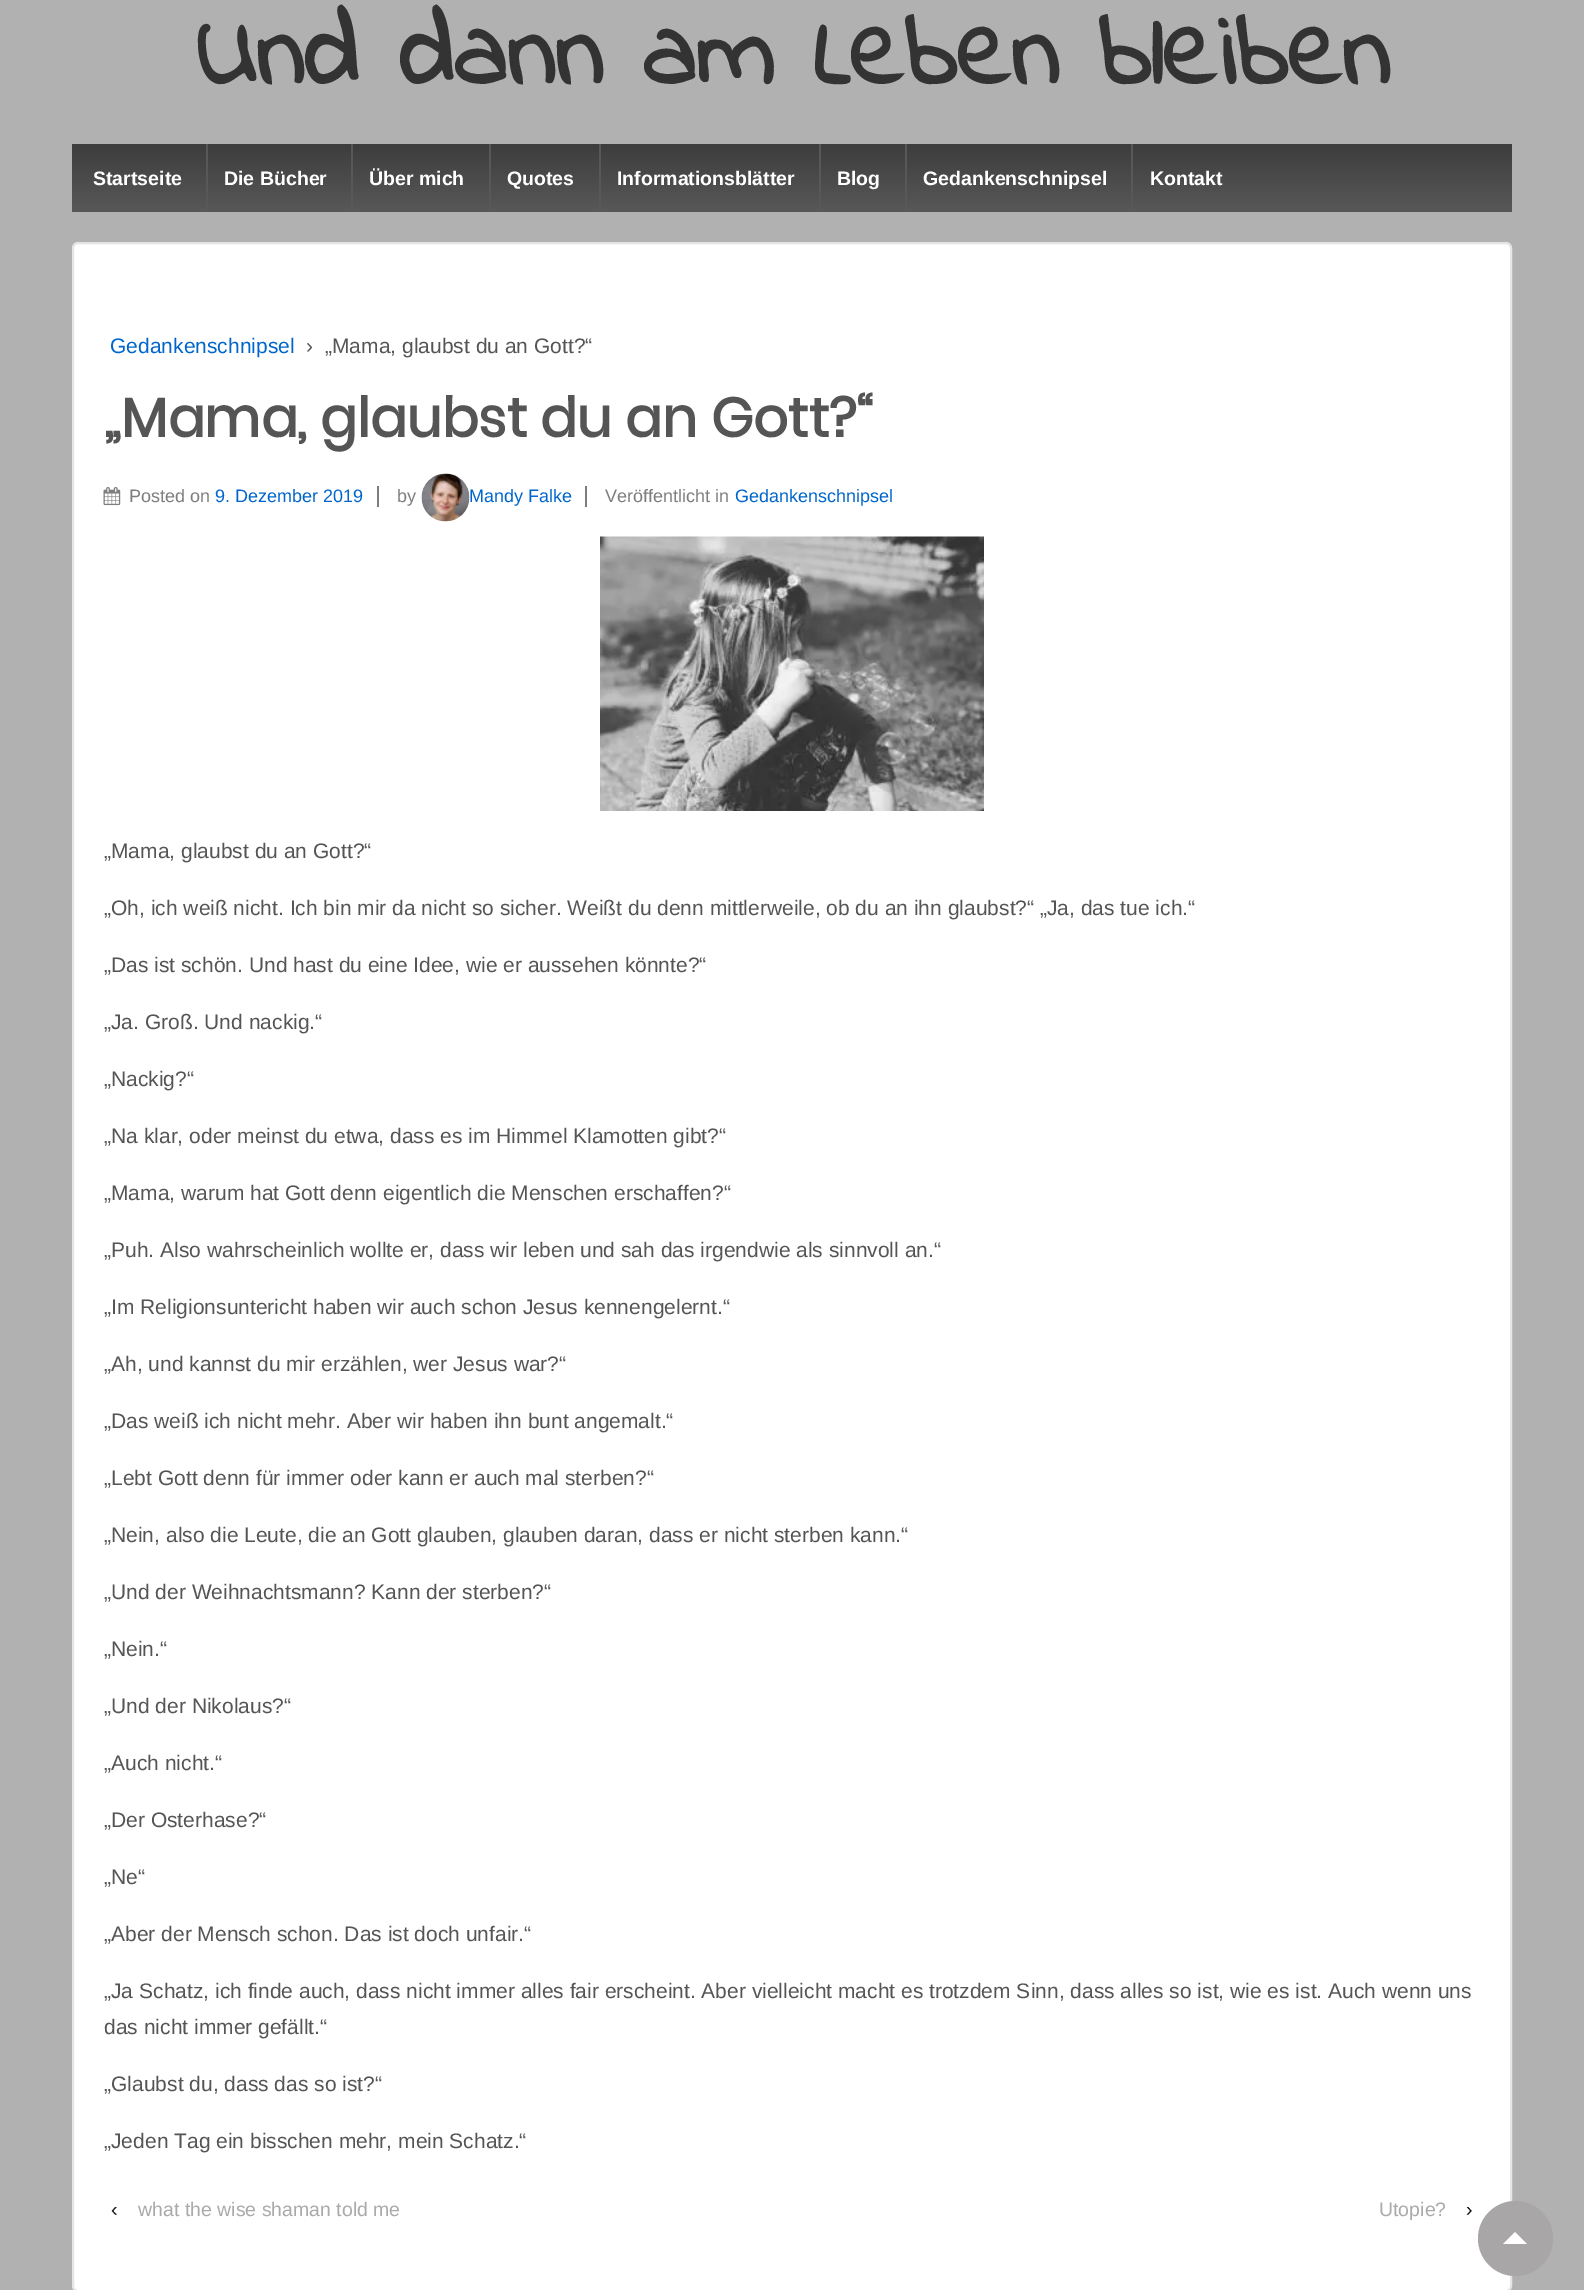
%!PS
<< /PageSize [1584 2290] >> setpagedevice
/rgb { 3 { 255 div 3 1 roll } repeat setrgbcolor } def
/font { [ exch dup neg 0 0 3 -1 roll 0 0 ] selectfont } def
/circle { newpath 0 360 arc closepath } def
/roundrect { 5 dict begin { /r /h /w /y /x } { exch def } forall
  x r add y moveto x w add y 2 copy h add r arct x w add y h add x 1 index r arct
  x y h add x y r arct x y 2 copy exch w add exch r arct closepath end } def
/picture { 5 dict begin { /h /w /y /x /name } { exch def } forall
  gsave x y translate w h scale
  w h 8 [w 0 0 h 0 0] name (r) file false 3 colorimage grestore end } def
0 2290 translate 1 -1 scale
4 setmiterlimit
177 177 177 rgb
0 0 1584 2290 rectfill
gsave 72 144 moveto 1512 144 lineto 1512 212 lineto 72 212 lineto closepath clip newpath
<< /ShadingType 2 /ColorSpace /DeviceRGB /Coords [792 212 792 144] /Extend [true true] /Function << /FunctionType 2 /Domain [0 1] /C0 [0.345 0.345 0.345] /C1 [0.239 0.239 0.239] /N 1 >> >> shfill grestore
[
  [206 144 2 68 88 88 88]
  [351 144 2 68 88 88 88]
  [489 144 2 68 88 88 88]
  [599 144 2 68 88 88 88]
  [819 144 2 68 88 88 88]
  [905 144 2 68 88 88 88]
  [1131 144 2 68 88 88 88]
] { aload pop rgb rectfill } forall
255 255 255 rgb
73 243 1438 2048 5 roundrect gsave fill grestore
229 229 229 rgb
2 setlinewidth
stroke
(img/1.rgb) 103 487 18 19 picture
126 126 126 rgb
377 486 2 21 rectfill
(img/2.rgb) 421 473 49 49 picture
585 486 2 21 rectfill
(img/3.rgb) 600 536 384 275 picture
168 166 166 rgb
1515.5 2238.5 37.5 circle fill
255 255 255 rgb
1527 2244 moveto 1503 2244 lineto 1515 2232 lineto closepath fill
/IndieFlower-Bold 105 font
51 51 51 rgb
195 84 moveto (Und dann am Leben bleiben) show
/LiberationSans-Bold 19.5 font
255 255 255 rgb
[
  [(Startseite) 93 185]
  [(Die Bücher) 224 185]
  [(Über mich) 369 185]
  [(Quotes) 507 185]
  [(Informationsblätter) 617 185]
  [(Blog) 837 185]
  [(Gedankenschnipsel) 923 185]
  [(Kontakt) 1150 185]
] { aload pop moveto show } forall
/LiberationSans-Regular 21 font
0 102 204 rgb
110 353 moveto (Gedankenschnipsel) show
85 85 85 rgb
306 353 moveto (›) show
325 353 moveto („Mama, glaubst du an Gott?“) show
/Poppins-Bold 54.6 font
104 437 moveto („Mama, glaubst du an Gott?“) show
/LiberationSans-Regular 18 font
126 126 126 rgb
129 502 moveto (Posted on) show
0 102 204 rgb
215 502 moveto (9. Dezember 2019) show
126 126 126 rgb
397 502 moveto (by) show
0 102 204 rgb
469 502 moveto (Mandy Falke) show
126 126 126 rgb
605 502 moveto (Veröffentlicht in) show
0 102 204 rgb
735 502 moveto (Gedankenschnipsel) show
/LiberationSans-Regular 21 font
85 85 85 rgb
[
  [(„Mama, glaubst du an Gott?“) 104 858]
  [(„Oh, ich weiß nicht. Ich bin mir da nicht so sicher. Weißt du denn mittlerweile, ob du an ihn glaubst?“ „Ja, das tue ich.“) 104 915]
  [(„Das ist schön. Und hast du eine Idee, wie er aussehen könnte?“) 104 972]
  [(„Ja. Groß. Und nackig.“) 104 1029]
  [(„Nackig?“) 104 1086]
  [(„Na klar, oder meinst du etwa, dass es im Himmel Klamotten gibt?“) 104 1143]
  [(„Mama, warum hat Gott denn eigentlich die Menschen erschaffen?“) 104 1200]
  [(„Puh. Also wahrscheinlich wollte er, dass wir leben und sah das irgendwie als sinnvoll an.“) 104 1257]
  [(„Im Religionsuntericht haben wir auch schon Jesus kennengelernt.“) 104 1314]
  [(„Ah, und kannst du mir erzählen, wer Jesus war?“) 104 1371]
  [(„Das weiß ich nicht mehr. Aber wir haben ihn bunt angemalt.“) 104 1428]
  [(„Lebt Gott denn für immer oder kann er auch mal sterben?“) 104 1485]
  [(„Nein, also die Leute, die an Gott glauben, glauben daran, dass er nicht sterben kann.“) 104 1542]
  [(„Und der Weihnachtsmann? Kann der sterben?“) 104 1599]
  [(„Nein.“) 104 1656]
  [(„Und der Nikolaus?“) 104 1713]
  [(„Auch nicht.“) 104 1770]
  [(„Der Osterhase?“) 104 1827]
  [(„Ne“) 104 1884]
  [(„Aber der Mensch schon. Das ist doch unfair.“) 104 1941]
  [(„Ja Schatz, ich finde auch, dass nicht immer alles fair erscheint. Aber vielleicht macht es trotzdem Sinn, dass alles so ist, wie es ist. Auch wenn uns) 104 1998]
  [(das nicht immer gefällt.“) 104 2034]
  [(„Glaubst du, dass das so ist?“) 104 2091]
  [(„Jeden Tag ein bisschen mehr, mein Schatz.“) 104 2148]
] { aload pop moveto show } forall
/LiberationSans-Regular 19.5 font
17 17 17 rgb
111 2216 moveto (‹) show
170 170 170 rgb
138 2216 moveto (what the wise shaman told me) show
1379 2216 moveto (Utopie?) show
17 17 17 rgb
1466 2216 moveto (›) show
showpage
